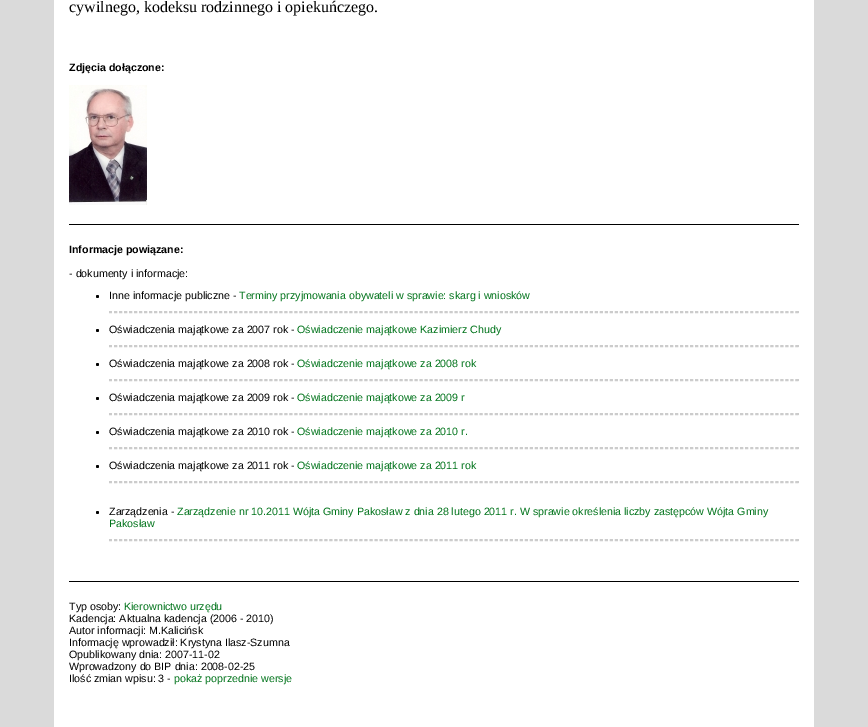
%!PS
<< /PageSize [868 727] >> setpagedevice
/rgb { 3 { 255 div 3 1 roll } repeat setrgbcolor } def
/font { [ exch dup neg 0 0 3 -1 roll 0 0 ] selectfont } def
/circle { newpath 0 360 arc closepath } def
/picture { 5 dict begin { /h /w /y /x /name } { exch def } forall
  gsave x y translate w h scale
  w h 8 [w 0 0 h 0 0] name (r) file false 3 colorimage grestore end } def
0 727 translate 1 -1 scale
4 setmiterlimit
218 218 218 rgb
0 0 868 727 rectfill
255 255 255 rgb
54 0 760 727 rectfill
(img/1.rgb) 69 85 78 120 picture
0 0 0 rgb
69 224 730 1 rectfill
97.5 296.5 1.5 circle fill
204 204 204 rgb
[3 2.01] 0 setdash
109 311.5 moveto 799 311.5 lineto stroke
798 311 1 2 rectfill
109 312.5 moveto 799 312.5 lineto stroke
0 0 0 rgb
97.5 330.5 1.5 circle fill
204 204 204 rgb
109 345.5 moveto 799 345.5 lineto stroke
798 345 1 2 rectfill
109 346.5 moveto 799 346.5 lineto stroke
0 0 0 rgb
97.5 364.5 1.5 circle fill
204 204 204 rgb
109 379.5 moveto 799 379.5 lineto stroke
798 379 1 2 rectfill
109 380.5 moveto 799 380.5 lineto stroke
0 0 0 rgb
97.5 398.5 1.5 circle fill
204 204 204 rgb
109 413.5 moveto 799 413.5 lineto stroke
798 413 1 2 rectfill
109 414.5 moveto 799 414.5 lineto stroke
0 0 0 rgb
97.5 432.5 1.5 circle fill
204 204 204 rgb
109 447.5 moveto 799 447.5 lineto stroke
798 447 1 2 rectfill
109 448.5 moveto 799 448.5 lineto stroke
0 0 0 rgb
97.5 466.5 1.5 circle fill
204 204 204 rgb
109 481.5 moveto 799 481.5 lineto stroke
798 481 1 2 rectfill
109 482.5 moveto 799 482.5 lineto stroke
0 0 0 rgb
97.5 512.5 1.5 circle fill
204 204 204 rgb
109 539.5 moveto 799 539.5 lineto stroke
798 539 1 2 rectfill
109 540.5 moveto 799 540.5 lineto stroke
0 0 0 rgb
69 581 730 1 rectfill
/LiberationSerif-Regular 16 font
69 12 moveto (cywilnego, kodeksu rodzinnego i opiekuńczego.) show
/LiberationSans-Bold 10.67 font
69 71 moveto (Zdjęcia dołączone:) show
69 253 moveto (Informacje powiązane:) show
/LiberationSans-Regular 10.67 font
69 277 moveto (- dokumenty i informacje:) show
109 299 moveto (Inne informacje publiczne -) show
0 115 26 rgb
239 299 moveto (Terminy przyjmowania obywateli w sprawie: skarg i wniosków) show
0 0 0 rgb
109 333 moveto (Oświadczenia majątkowe za 2007 rok -) show
0 115 26 rgb
297 333 moveto (Oświadczenie majątkowe Kazimierz Chudy) show
0 0 0 rgb
109 367 moveto (Oświadczenia majątkowe za 2008 rok -) show
0 115 26 rgb
297 367 moveto (Oświadczenie majątkowe za 2008 rok) show
0 0 0 rgb
109 401 moveto (Oświadczenia majątkowe za 2009 rok -) show
0 115 26 rgb
297 401 moveto (Oświadczenie majątkowe za 2009 r) show
0 0 0 rgb
109 435 moveto (Oświadczenia majątkowe za 2010 rok -) show
0 115 26 rgb
297 435 moveto (Oświadczenie majątkowe za 2010 r.) show
0 0 0 rgb
109 469 moveto (Oświadczenia majątkowe za 2011 rok -) show
0 115 26 rgb
297 469 moveto (Oświadczenie majątkowe za 2011 rok) show
0 0 0 rgb
109 515 moveto (Zarządzenia -) show
0 115 26 rgb
177 515 moveto (Zarządzenie nr 10.2011 Wójta Gminy Pakosław z dnia 28 lutego 2011 r. W sprawie określenia liczby zastępców Wójta Gminy) show
109 527 moveto (Pakosław) show
0 0 0 rgb
69 610 moveto (Typ osoby:) show
0 115 26 rgb
124 610 moveto (Kierownictwo urzędu) show
0 0 0 rgb
[
  [(Kadencja: Aktualna kadencja \(2006 - 2010\)) 69 622]
  [(Autor informacji: M.Kalicińsk) 69 634]
  [(Informację wprowadził: Krystyna Ilasz-Szumna) 69 646]
  [(Opublikowany dnia: 2007-11-02) 69 658]
  [(Wprowadzony do BIP dnia: 2008-02-25) 69 670]
  [(Ilość zmian wpisu: 3 -) 69 682]
] { aload pop moveto show } forall
0 115 26 rgb
174 682 moveto (pokaż poprzednie wersje) show
showpage
